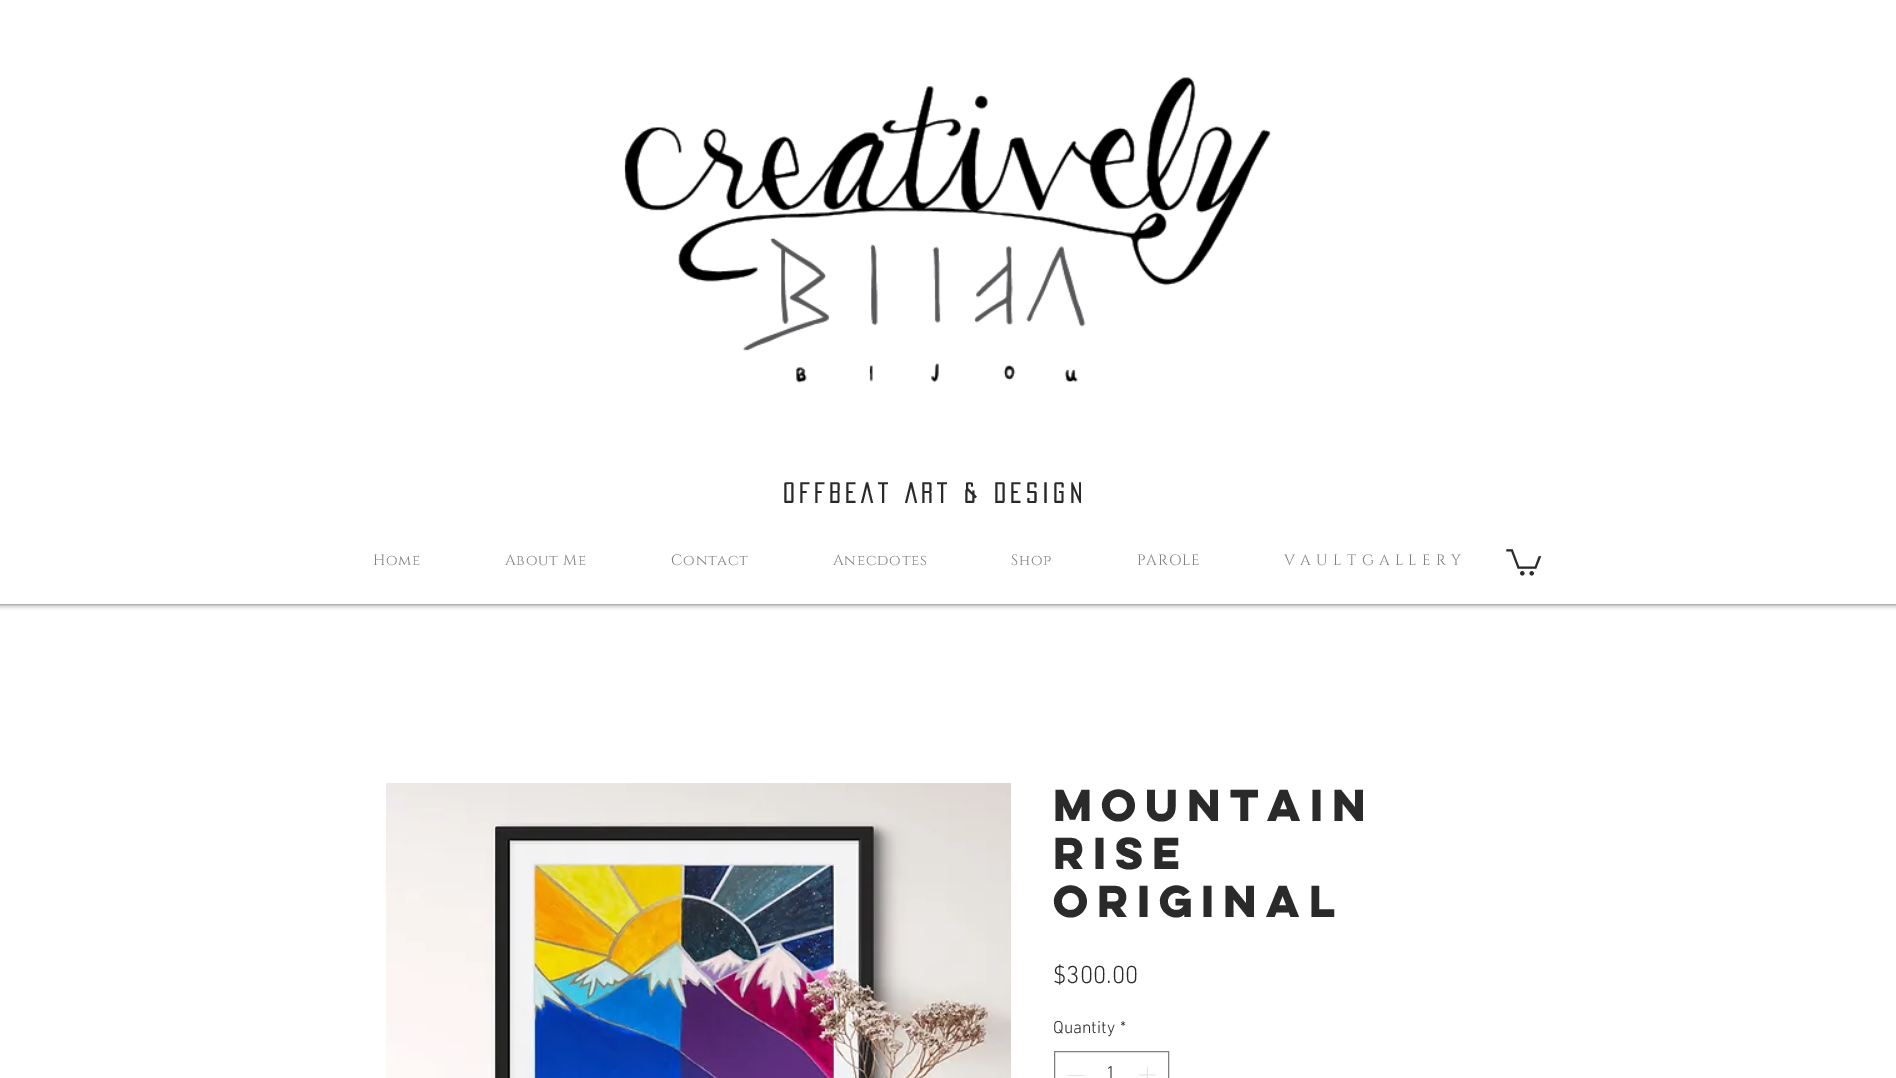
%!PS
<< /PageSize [1896 1078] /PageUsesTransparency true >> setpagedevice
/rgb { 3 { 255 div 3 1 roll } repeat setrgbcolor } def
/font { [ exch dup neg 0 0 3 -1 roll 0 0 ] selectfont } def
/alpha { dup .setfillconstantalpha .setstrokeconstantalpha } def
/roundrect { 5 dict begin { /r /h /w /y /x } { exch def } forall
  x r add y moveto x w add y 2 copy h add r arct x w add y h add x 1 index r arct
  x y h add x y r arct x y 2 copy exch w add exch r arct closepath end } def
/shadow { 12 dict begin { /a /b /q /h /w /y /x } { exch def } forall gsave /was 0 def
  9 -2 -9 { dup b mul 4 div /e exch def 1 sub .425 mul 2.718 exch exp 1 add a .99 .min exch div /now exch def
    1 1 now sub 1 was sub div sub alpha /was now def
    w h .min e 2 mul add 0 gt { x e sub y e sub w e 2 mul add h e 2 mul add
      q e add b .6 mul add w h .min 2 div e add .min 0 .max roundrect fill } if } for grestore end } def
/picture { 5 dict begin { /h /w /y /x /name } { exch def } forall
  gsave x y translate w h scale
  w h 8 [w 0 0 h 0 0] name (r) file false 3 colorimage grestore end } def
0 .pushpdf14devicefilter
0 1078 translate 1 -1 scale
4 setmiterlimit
255 255 255 rgb
0 0 1896 1078 rectfill
0 0 0 rgb
0 0 1896 604 0 3 0.7 shadow
255 255 255 rgb
0 0 1896 604 rectfill
(img/1.rgb) 624 77 647 306 picture
(img/2.rgb) 1506 549 36 27 picture
(img/3.rgb) 386 783 625 295 picture
127 127 127 rgb
1054.5 1051.5 114 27 rectstroke
227 227 227 rgb
1068 1075 17 1 rectfill
(img/4.rgb) 1139 1066 17 12 picture
/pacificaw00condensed-Bold 25 font
42 42 42 rgb
783 503 moveto 5 0 (OFFBEAT ART & DESIGN) ashow
/Cinzel-Regular 15 font
128 128 128 rgb
373 565 moveto 0.75 0 (Home) ashow
505 565 moveto 0.75 0 (About Me) ashow
671 565 moveto 0.75 0 (Contact) ashow
833 565 moveto 0.75 0 (Anecdotes) ashow
1011 565 moveto 0.75 0 (Shop) ashow
1137 565 moveto 0.75 0 (PAROLE) ashow
1284 565 moveto 0.75 0 (V A U L T G A L L E R Y) ashow
/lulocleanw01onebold-Bold 40 font
42 42 42 rgb
[
  [(Mountain) 1053 821]
  [(Rise) 1053 869]
  [(Original) 1053 917]
] { aload pop moveto show } forall
/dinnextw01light-Light 25 font
1053 983 moveto ($300.00) show
/dinnextw01light-Light 17.5 font
[
  [(Quantity) 1053 1033]
  [(*) 1120 1033]
  [(1) 1106 1078]
] { aload pop moveto show } forall
.poppdf14devicefilter showpage
